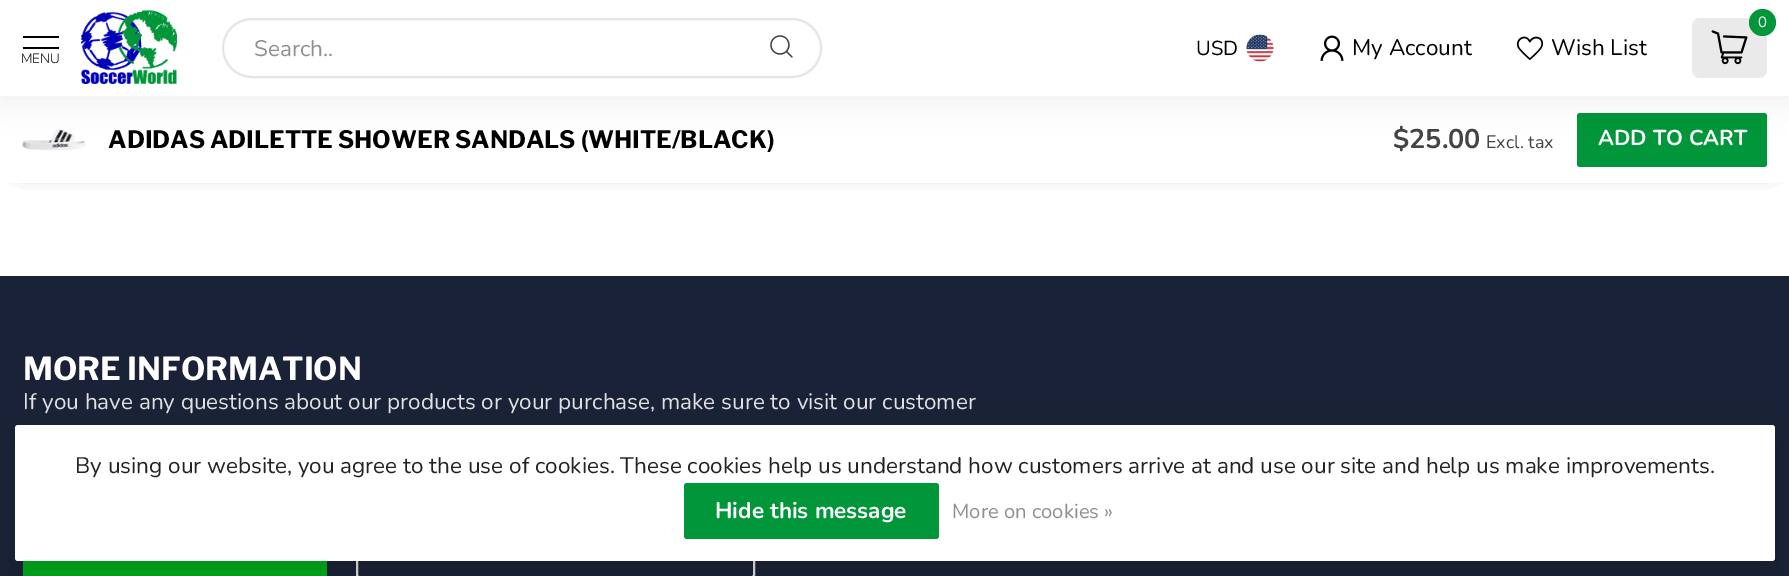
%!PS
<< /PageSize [1789 576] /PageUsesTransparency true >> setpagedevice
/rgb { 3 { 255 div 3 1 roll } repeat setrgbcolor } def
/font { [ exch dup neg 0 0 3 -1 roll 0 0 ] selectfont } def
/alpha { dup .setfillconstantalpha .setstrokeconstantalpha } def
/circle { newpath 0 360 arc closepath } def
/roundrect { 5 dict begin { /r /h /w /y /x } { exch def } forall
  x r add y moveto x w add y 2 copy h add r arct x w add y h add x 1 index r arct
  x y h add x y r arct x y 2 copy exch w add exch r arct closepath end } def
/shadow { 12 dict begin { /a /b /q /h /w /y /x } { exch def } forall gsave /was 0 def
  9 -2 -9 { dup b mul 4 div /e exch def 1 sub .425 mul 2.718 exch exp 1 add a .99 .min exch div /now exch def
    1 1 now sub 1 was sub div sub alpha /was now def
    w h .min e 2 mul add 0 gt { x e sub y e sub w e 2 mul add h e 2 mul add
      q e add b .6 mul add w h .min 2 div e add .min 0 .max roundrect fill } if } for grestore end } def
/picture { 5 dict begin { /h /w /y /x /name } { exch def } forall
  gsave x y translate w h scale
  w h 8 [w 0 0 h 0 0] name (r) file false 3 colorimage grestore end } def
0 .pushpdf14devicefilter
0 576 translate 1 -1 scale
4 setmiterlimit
255 255 255 rgb
0 0 1789 576 rectfill
68 68 68 rgb
21 120 1748 45 0 11 1 shadow
255 255 255 rgb
0 96 1789 87 rectfill
(img/7.rgb) 22 128 64 23 picture
0 150 57 rgb
1577 113 190 54 3 roundrect fill
0 0 0 rgb
0 -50 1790 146 0 16.5 0.08 shadow
255 255 255 rgb
0 0 1789 96 rectfill
(img/1.rgb) 81 10 96 74 picture
229 229 229 rgb
2 setlinewidth
223 19 598 58 29 roundrect stroke
(img/2.rgb) 770 35 23 23 picture
0 0 0 rgb
23 36 36 2 rectfill
23 47 36 2 rectfill
234 234 234 rgb
1692 18 75 60 8 roundrect fill
0 150 57 rgb
1762.5 22.5 13.5 circle fill
(img/3.rgb) 1711 30 37 35 picture
(img/4.rgb) 1246 34 28 28 picture
(img/5.rgb) 1320 35 24 26 picture
(img/6.rgb) 1516 36 28 24 picture
26 34 55 rgb
0 276 1789 300 rectfill
0 169 30 rgb
23 503 304 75 3 roundrect fill
225 225 225 rgb
357 504 397 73 2 roundrect stroke
0 0 0 rgb
15 440 1760 136 3 22.5 0.15 shadow
255 255 255 rgb
15 425 1760 136 3 roundrect fill
0 150 57 rgb
684 483 255 56 3 roundrect fill
/Nunito-Regular 22.5 font
143 143 143 rgb
254 56 moveto (Search..) show
/Nunito-Light 13.5 font
0 0 0 rgb
21 63 moveto (MENU) show
/Nunito-Regular 15 font
255 255 255 rgb
1758 27 moveto (0) show
/Nunito-Regular 20.25 font
0 0 0 rgb
1196 55 moveto (USD) show
/Nunito-Regular 22.5 font
1352 55 moveto (My Account) show
1551 55 moveto (Wish List) show
/LibreFranklin-Bold 24 font
108 148 moveto (ADIDAS ADILETTE SHOWER SANDALS \(WHITE/BLACK\)) show
/Nunito-Bold 27 font
68 68 68 rgb
1393 148 moveto ($25.00) show
/Nunito-Regular 18 font
1486 148 moveto (Excl. tax) show
/Nunito-Bold 21.5 font
255 255 255 rgb
1598 145 moveto (ADD TO CART) show
/LibreFranklin-Bold 31.5 font
23 380 moveto (MORE INFORMATION) show
/Nunito-Regular 22.5 font
225 225 225 rgb
23 409 moveto (If you have any questions about our products or your purchase, make sure to visit our customer) show
34 34 34 rgb
75 473 moveto (By using our website, you agree to the use of cookies. These cookies help us understand how customers arrive at and use our site and help us make improvements.) show
/Nunito-Bold 22.5 font
255 255 255 rgb
715 518 moveto (Hide this message) show
/Nunito-Regular 20.25 font
143 143 143 rgb
952 518 moveto (More on cookies ») show
.poppdf14devicefilter showpage
